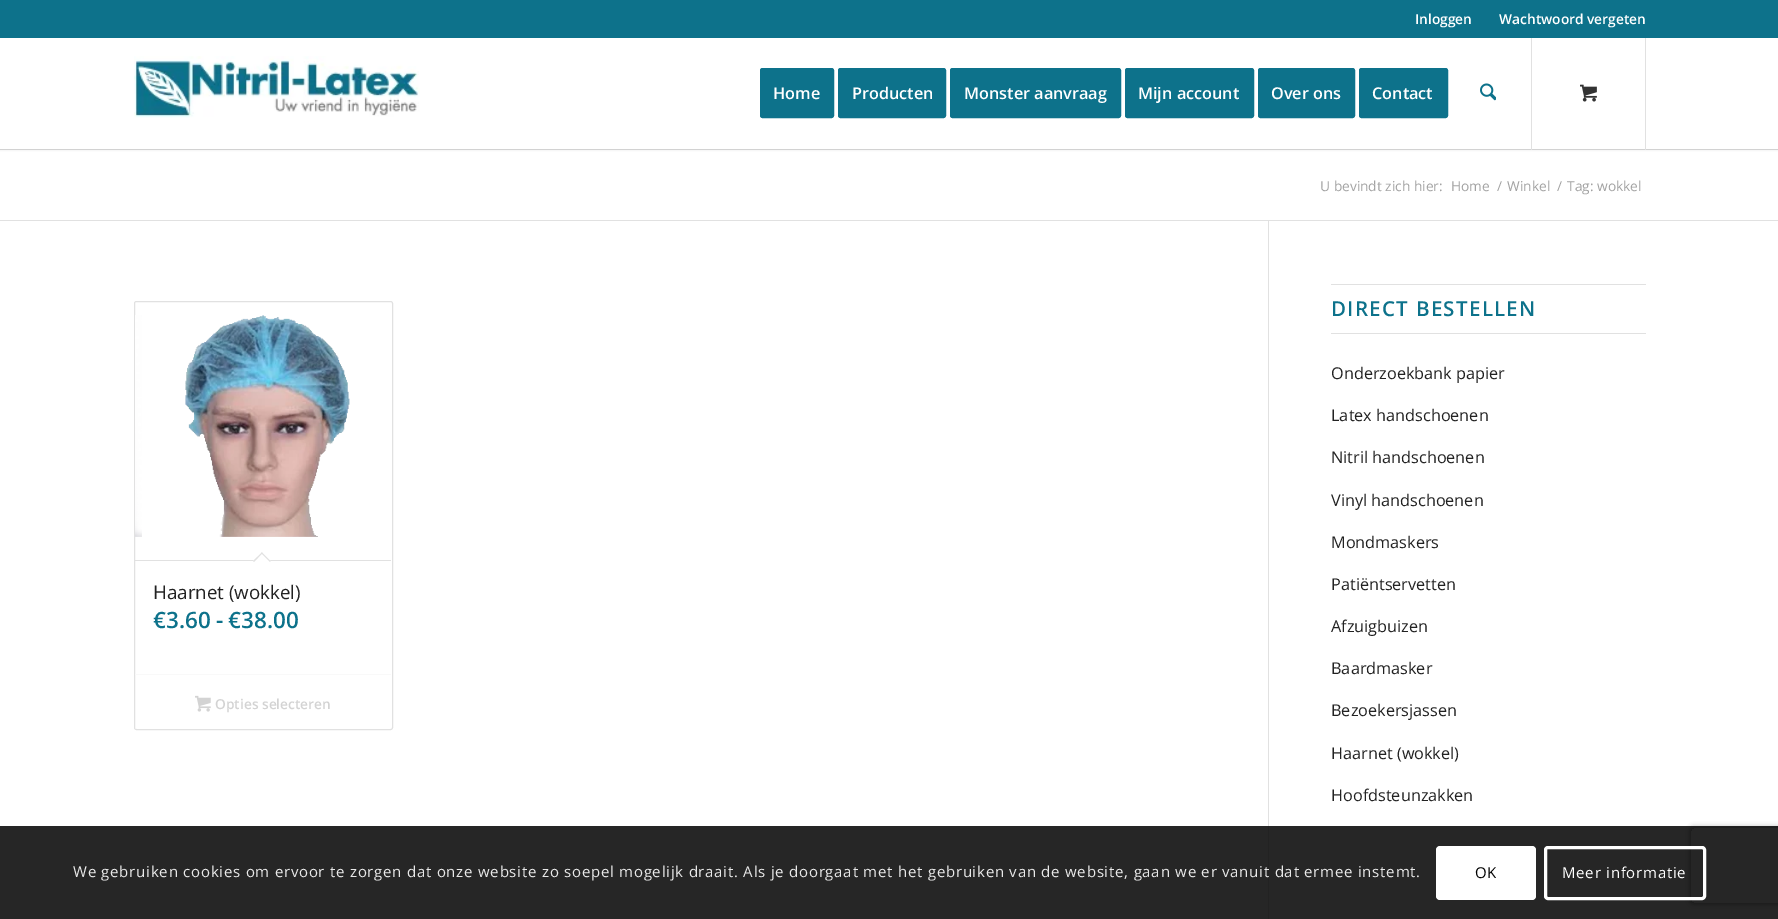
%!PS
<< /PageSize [1778 919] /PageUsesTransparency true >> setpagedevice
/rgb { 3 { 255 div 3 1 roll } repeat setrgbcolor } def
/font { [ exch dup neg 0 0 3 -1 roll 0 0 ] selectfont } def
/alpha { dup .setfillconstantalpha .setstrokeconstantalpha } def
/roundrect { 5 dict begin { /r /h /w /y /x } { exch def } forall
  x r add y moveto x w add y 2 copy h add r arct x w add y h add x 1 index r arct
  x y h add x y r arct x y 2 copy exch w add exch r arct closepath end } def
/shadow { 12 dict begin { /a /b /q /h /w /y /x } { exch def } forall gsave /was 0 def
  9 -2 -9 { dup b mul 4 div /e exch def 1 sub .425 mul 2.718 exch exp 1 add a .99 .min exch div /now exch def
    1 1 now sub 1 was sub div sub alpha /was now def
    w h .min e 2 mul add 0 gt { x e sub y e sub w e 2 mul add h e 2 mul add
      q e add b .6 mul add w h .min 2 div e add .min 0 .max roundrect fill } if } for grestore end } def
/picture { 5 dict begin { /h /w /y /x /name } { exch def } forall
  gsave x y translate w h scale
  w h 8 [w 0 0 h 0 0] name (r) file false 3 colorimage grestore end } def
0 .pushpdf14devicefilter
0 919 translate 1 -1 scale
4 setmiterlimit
255 255 255 rgb
0 0 1778 919 rectfill
225 225 225 rgb
0 149 1778 1 rectfill
0 0 0 rgb
-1 -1 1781 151 0 1 0.1 shadow
[
  [0 38 1778 111 255 255 255]
  [1645 36 1 114 225 225 225]
  [1531 36 1 114 225 225 225]
  [0 0 1778 38 13 114 139]
] { aload pop rgb rectfill } forall
(img/1.rgb) 134 56 286 62 picture
761.5 69.5 71 47 1 roundrect gsave fill grestore
3 setlinewidth
stroke
839.5 69.5 105 47 1 roundrect gsave fill grestore
stroke
951.5 69.5 168 47 1 roundrect gsave fill grestore
stroke
1126.5 69.5 126 47 1 roundrect gsave fill grestore
stroke
1259.5 69.5 94 47 1 roundrect gsave fill grestore
stroke
1360.5 69.5 86 47 1 roundrect gsave fill grestore
stroke
(img/2.rgb) 1480 83 16 18 picture
(img/3.rgb) 1580 84 17 18 picture
225 225 225 rgb
0 220 1778 1 rectfill
1 setlinewidth
134.5 301.5 258 428 2 roundrect stroke
(img/4.rgb) 135 315 215 222 picture
135 560 256 1 rectfill
255 255 255 rgb
262 552.5 moveto 270.5 561 lineto 262 570 lineto 253 561 lineto closepath fill
225 225 225 rgb
262 552.5 moveto 270.5 561 lineto 270 562 lineto 261 553 lineto closepath fill
262 552.5 moveto 262.5 553 lineto 254 562 lineto 253 561 lineto closepath fill
0.2 alpha
255 255 255 rgb
135 728 1 1 rectfill
1 alpha
249 249 249 rgb
135 674 256 1 rectfill
(img/5.rgb) 195 695 16 17 picture
[
  [1268 221 1 698 225 225 225]
  [1331 284 315 1 225 225 225]
  [1331 333 315 1 225 225 225]
] { aload pop rgb rectfill } forall
gsave
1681 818 moveto 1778 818 lineto 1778 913 lineto 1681 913 lineto closepath 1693.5 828 moveto 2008.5 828 lineto 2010 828 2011 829 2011 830.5 curveto 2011 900.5 lineto 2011 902 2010 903 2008.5 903 curveto 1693.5 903 lineto 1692 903 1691 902 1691 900.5 curveto 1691 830.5 lineto 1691 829 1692 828 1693.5 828 curveto closepath eoclip newpath
128 128 128 rgb
1691 828 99 75 2.5 3 1 shadow
grestore
0.85 alpha
0 0 0 rgb
0 826 1778 93 rectfill
1 alpha
255 255 255 rgb
1436 846 100 54 4 roundrect fill
3 setlinewidth
1545.5 847.5 159 51 2.5 roundrect stroke
/OpenSans-SemiBold 13.75 font
1415 24 moveto (Inloggen) show
1499 24 moveto (Wachtwoord vergeten) show
/OpenSans-SemiBold 16.25 font
[
  [(Home) 773 99]
  [(Producten) 852 99]
  [(Monster aanvraag) 964 99]
  [(Mijn account) 1138 99]
  [(Over ons) 1271 99]
  [(Contact) 1372 99]
] { aload pop moveto show } forall
/OpenSans-Regular 13.75 font
162 162 162 rgb
[
  [(U bevindt zich hier:) 1320 191]
  [(Home) 1451 191]
  [(/) 1497 191]
  [(Winkel) 1507 191]
  [(/) 1557 191]
  [(Tag: wokkel) 1567 191]
] { aload pop moveto show } forall
/OpenSans-Regular 18.75 font
34 34 34 rgb
153 599 moveto (Haarnet \(wokkel\)) show
/OpenSans-SemiBold 22.5 font
13 114 139 rgb
[
  [(€3.60) 153 628]
  [(-) 216 628]
  [(€38.00) 228 628]
] { aload pop moveto show } forall
/OpenSans-SemiBold 13.75 font
211 211 211 rgb
215 709 moveto (Opties selecteren) show
/OpenSans-SemiBold 20.6 font
13 114 139 rgb
1331 316 moveto 1.25 0 (DIRECT BESTELLEN) ashow
/OpenSans-Regular 16.25 font
34 34 34 rgb
[
  [(Onderzoekbank papier) 1331 379]
  [(Latex handschoenen) 1331 421]
  [(Nitril handschoenen) 1331 463]
  [(Vinyl handschoenen) 1331 506]
  [(Mondmaskers) 1331 548]
  [(Patiëntservetten) 1331 590]
  [(Afzuigbuizen) 1331 632]
  [(Baardmasker) 1331 674]
  [(Bezoekersjassen) 1331 716]
  [(Haarnet \(wokkel\)) 1331 759]
  [(Hoofdsteunzakken) 1331 801]
] { aload pop moveto show } forall
/OpenSans-Regular 15 font
233 233 233 rgb
73 877 moveto 0.75 0 (We gebruiken cookies om ervoor te zorgen dat onze website zo soepel mogelijk draait. Als je doorgaat met het gebruiken van de website, gaan we er vanuit dat ermee instemt.) ashow
0 0 0 rgb
1475 878 moveto 0.75 0 (OK) ashow
255 255 255 rgb
1562 878 moveto 0.75 0 (Meer informatie) ashow
.poppdf14devicefilter showpage
